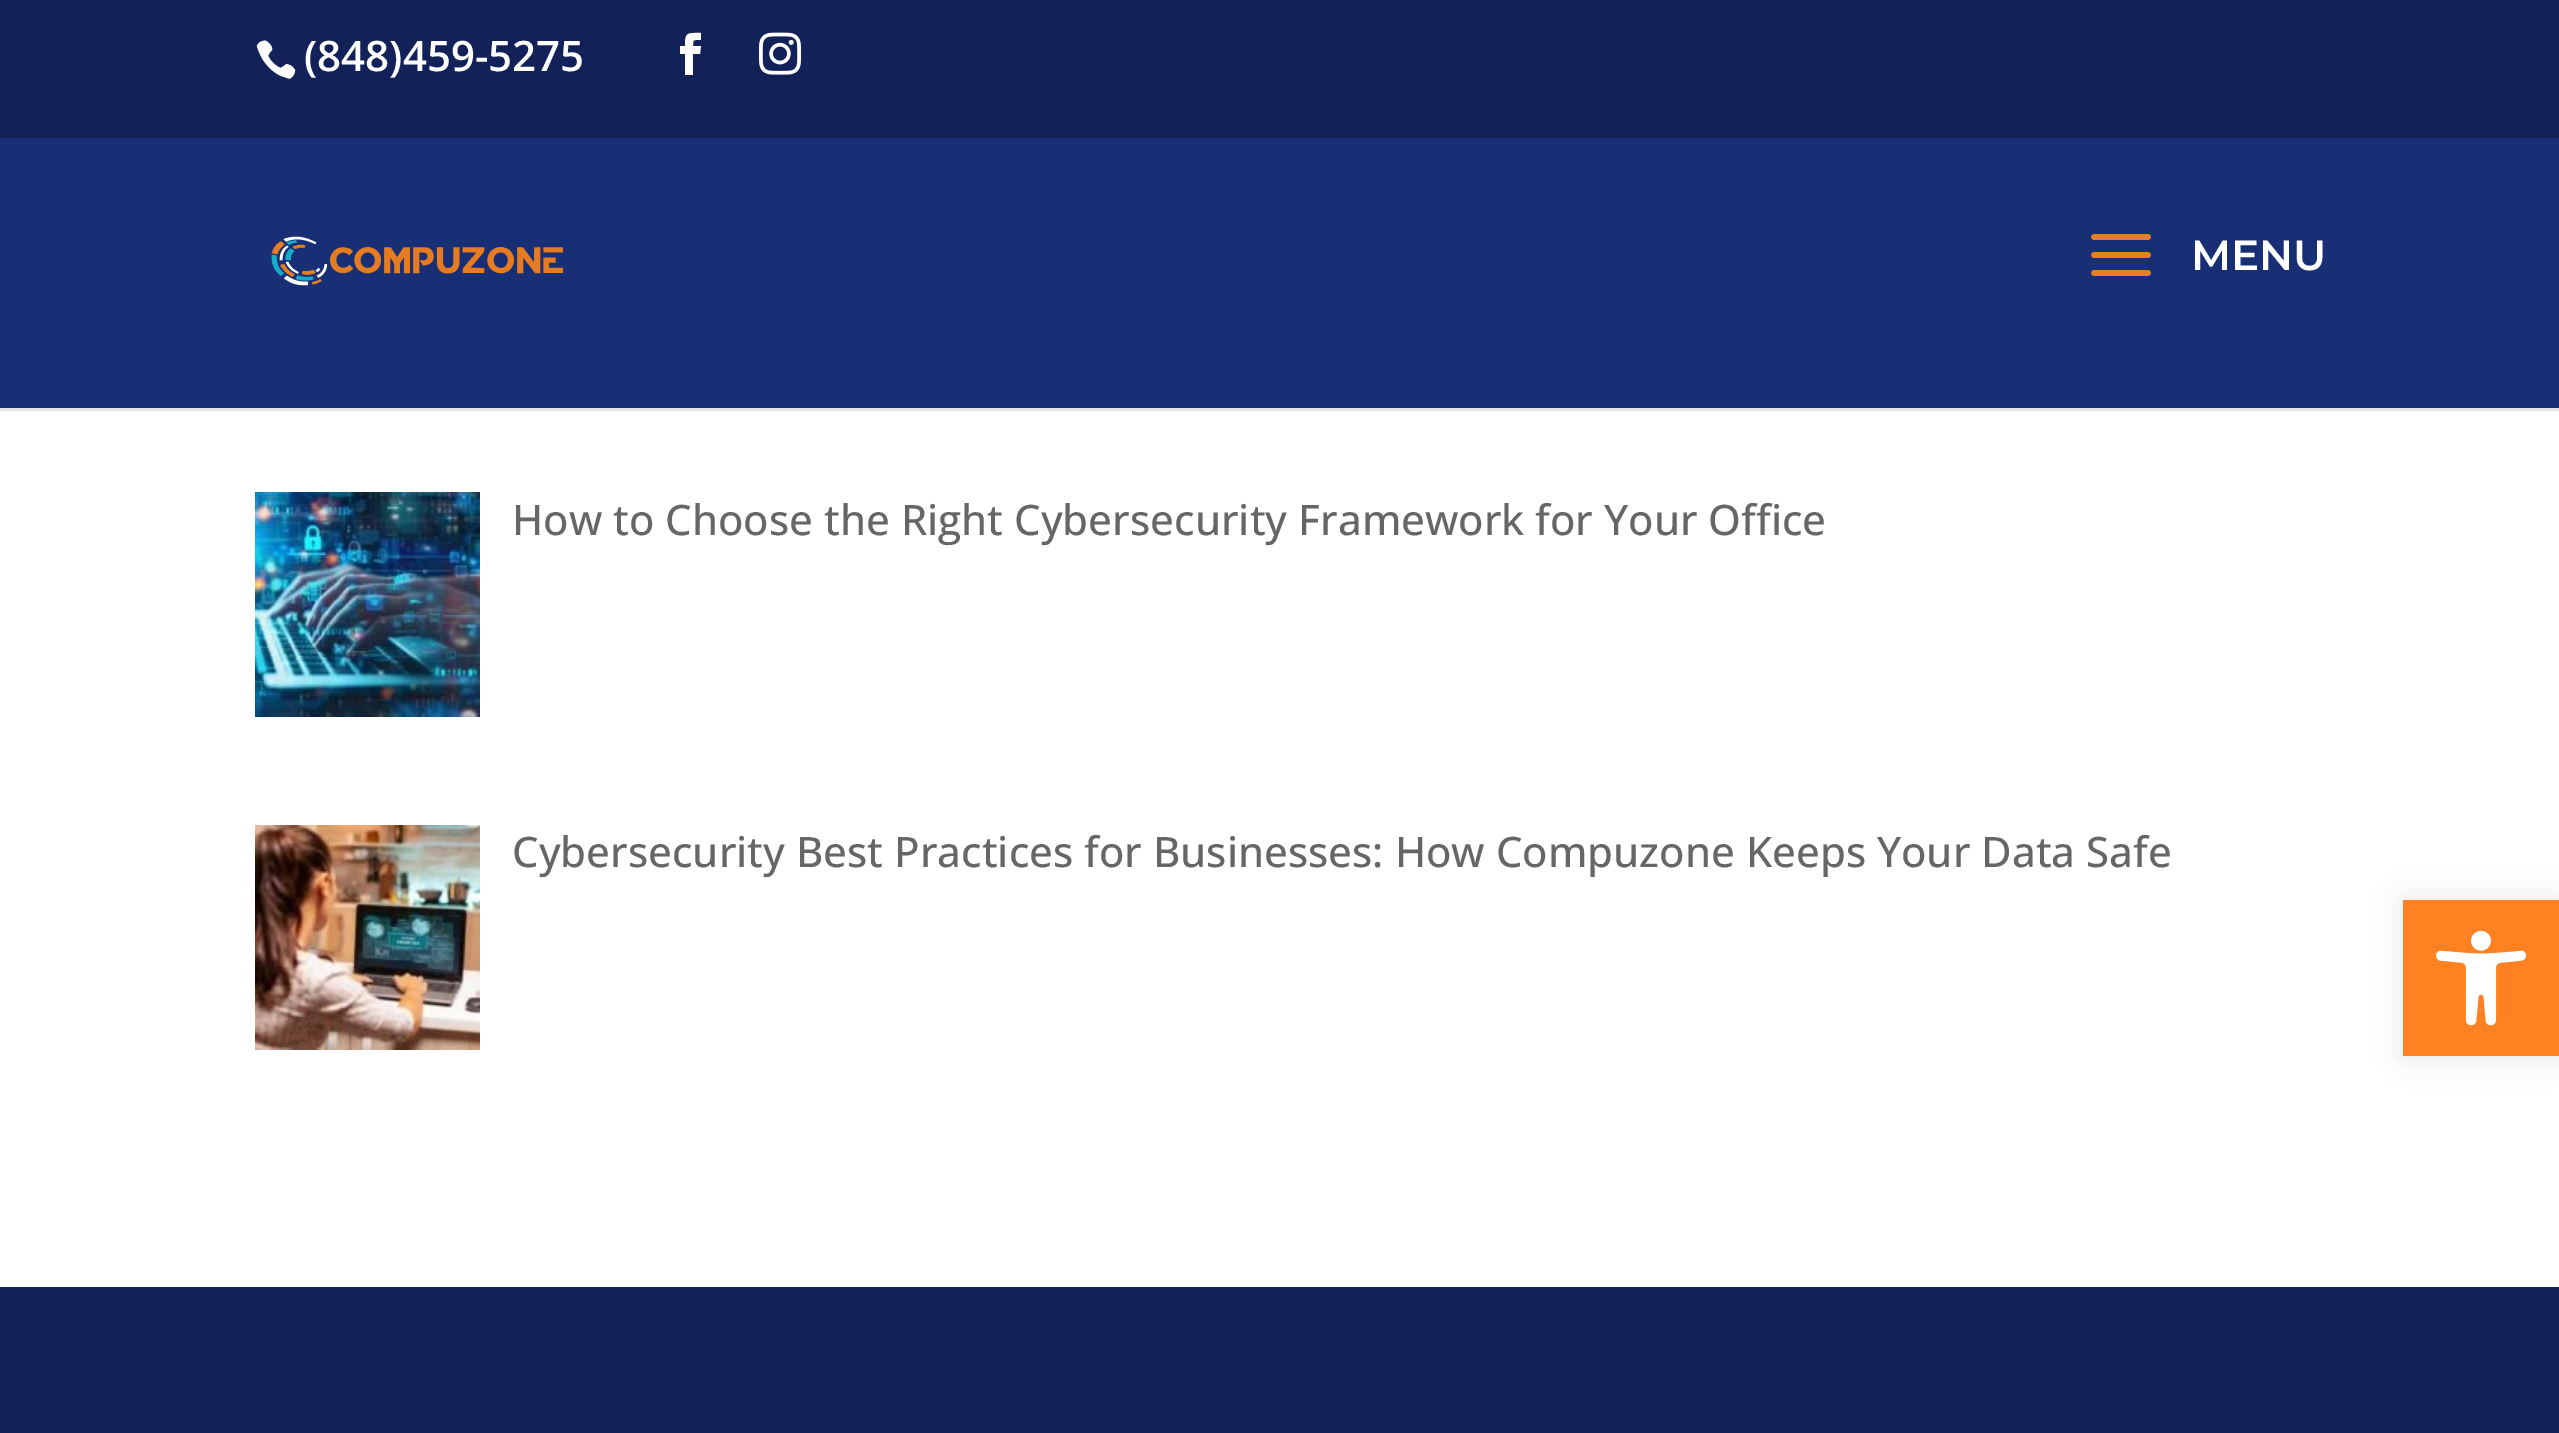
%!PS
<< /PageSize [2559 1433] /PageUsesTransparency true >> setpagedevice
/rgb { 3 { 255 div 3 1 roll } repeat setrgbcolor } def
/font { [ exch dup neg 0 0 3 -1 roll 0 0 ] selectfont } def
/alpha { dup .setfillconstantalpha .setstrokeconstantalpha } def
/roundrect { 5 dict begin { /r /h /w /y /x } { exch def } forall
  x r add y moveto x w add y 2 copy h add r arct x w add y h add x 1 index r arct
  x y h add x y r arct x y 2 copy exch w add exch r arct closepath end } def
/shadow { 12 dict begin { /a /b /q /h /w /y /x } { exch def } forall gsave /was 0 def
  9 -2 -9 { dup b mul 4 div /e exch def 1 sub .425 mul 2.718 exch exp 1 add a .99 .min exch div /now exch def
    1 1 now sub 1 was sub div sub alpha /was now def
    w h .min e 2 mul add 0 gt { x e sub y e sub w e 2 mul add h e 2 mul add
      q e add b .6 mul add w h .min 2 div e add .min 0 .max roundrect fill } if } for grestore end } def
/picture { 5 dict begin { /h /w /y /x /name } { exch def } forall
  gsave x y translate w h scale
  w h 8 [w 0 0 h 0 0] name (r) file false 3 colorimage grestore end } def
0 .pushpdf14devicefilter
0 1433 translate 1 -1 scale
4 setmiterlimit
255 255 255 rgb
0 0 2559 1433 rectfill
18 34 88 rgb
0 0 2559 138 rectfill
(img/1.rgb) 256 40 40 39 picture
255 255 255 rgb
685 75 moveto 693 75 lineto 693 54 lineto 700 54 lineto 701 46 lineto 693 46 lineto 693 39 693 40 701 40 curveto 701 33 lineto 687 33 685 32 685 46 curveto 680 46 lineto 680 54 lineto 685 54 lineto closepath fill
(img/2.rgb) 759 32 42 43 picture
230 230 230 rgb
0 408 2559 3 rectfill
24 46 117 rgb
0 138 2559 270 rectfill
(img/3.rgb) 271 236 293 50 picture
(img/4.rgb) 2091 234 60 42 picture
(img/5.rgb) 255 492 225 225 picture
(img/6.rgb) 255 825 225 225 picture
18 35 89 rgb
0 1287 2559 146 rectfill
0 0 0 rgb
2403 900 156 156 0 15 0.1 shadow
255 129 33 rgb
2403 900 156 156 rectfill
(img/7.rgb) 2436 930 91 96 picture
/OpenSans-SemiBold 42 font
255 255 255 rgb
304 71 moveto (\(848\)459-5275) show
/Montserrat-SemiBold 42 font
2191 270 moveto (MENU) show
/OpenSans-Medium 42 font
102 102 102 rgb
512 535 moveto (How to Choose the Right Cybersecurity Framework for Your Office) show
512 867 moveto (Cybersecurity Best Practices for Businesses: How Compuzone Keeps Your Data Safe) show
.poppdf14devicefilter showpage
